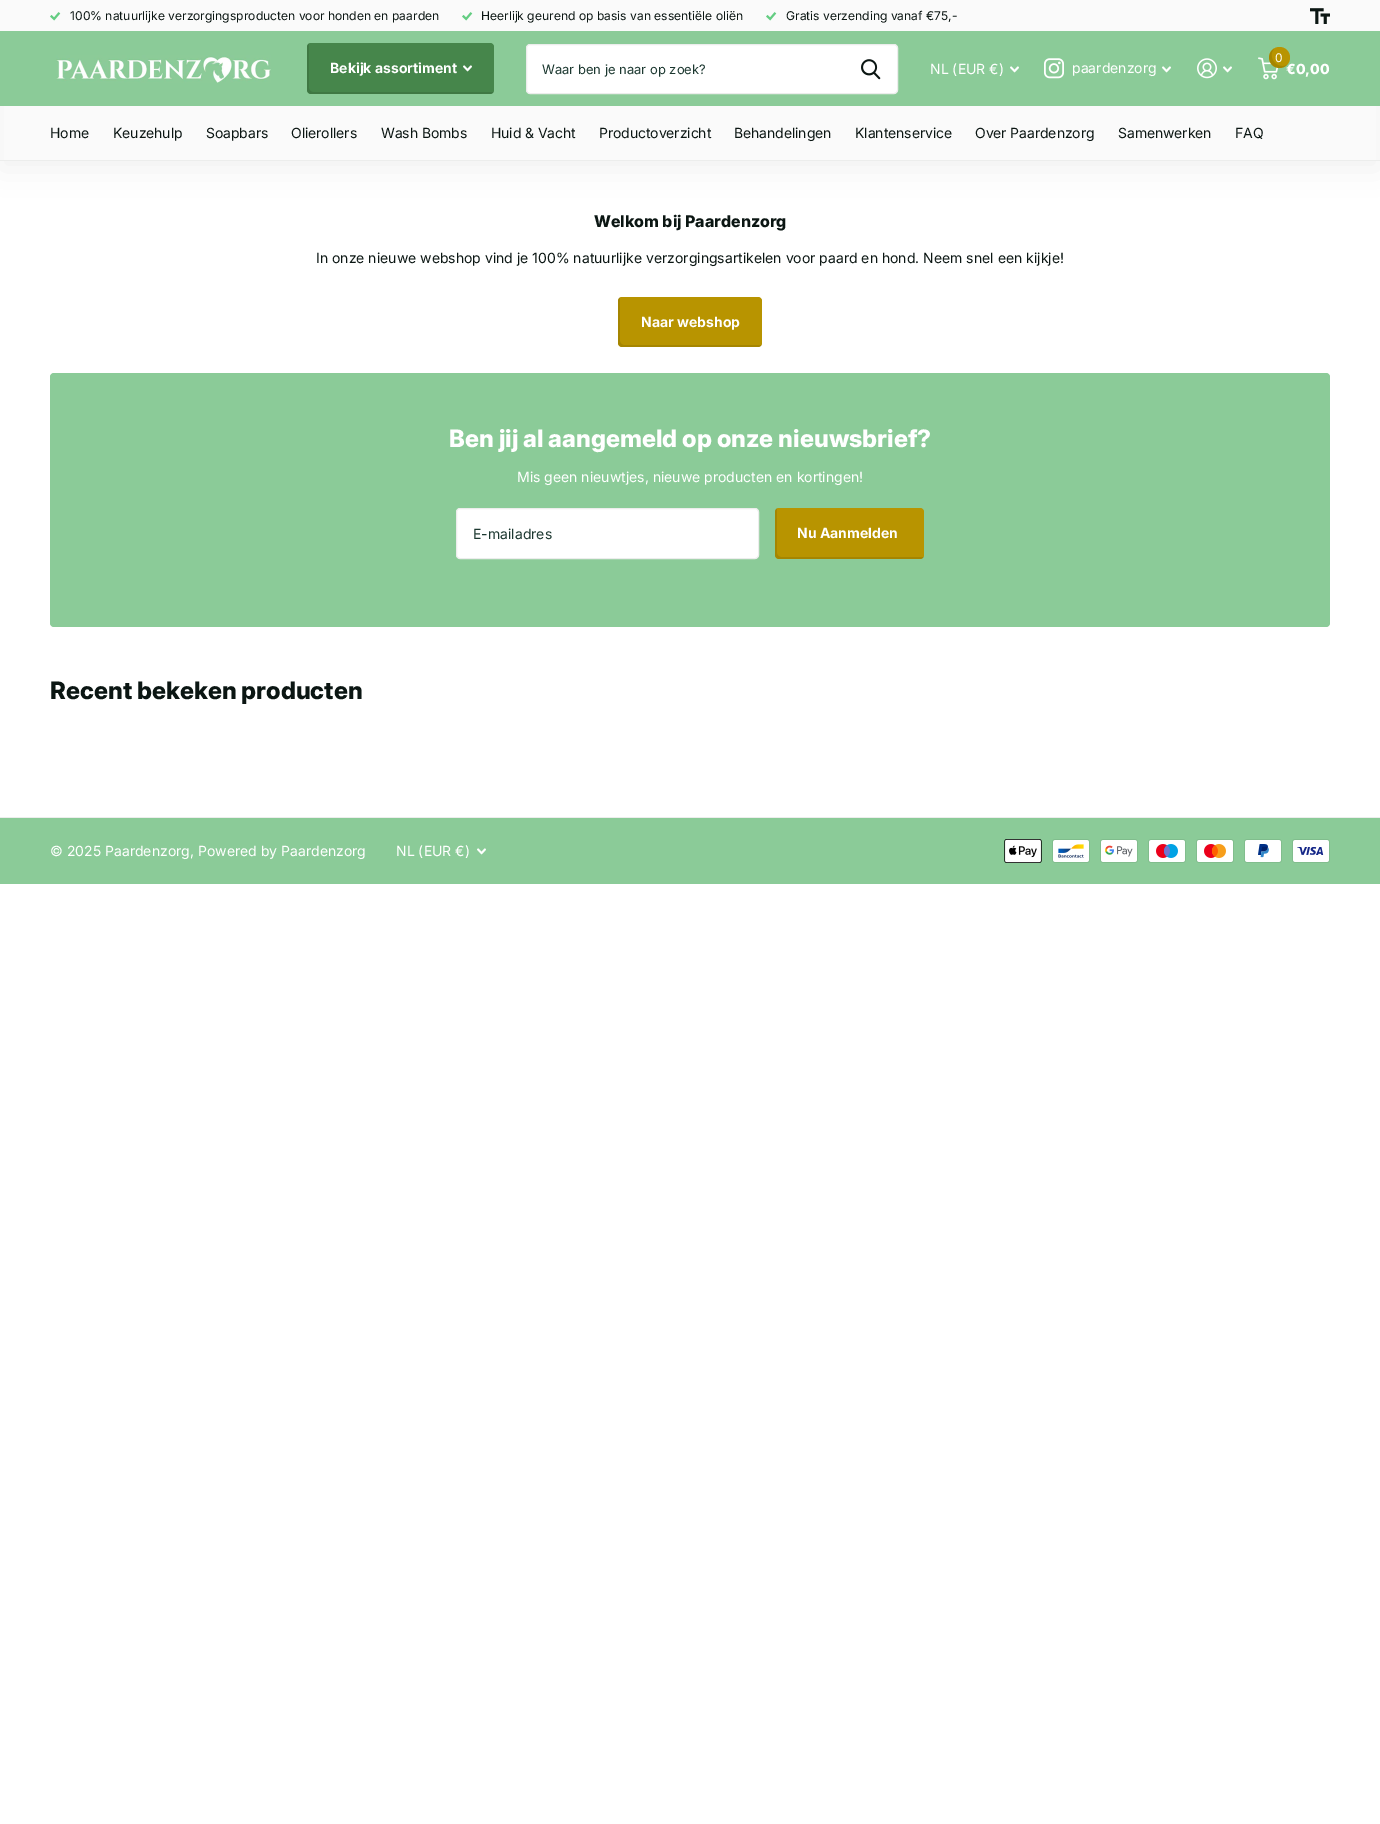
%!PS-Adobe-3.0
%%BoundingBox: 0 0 1380 1824
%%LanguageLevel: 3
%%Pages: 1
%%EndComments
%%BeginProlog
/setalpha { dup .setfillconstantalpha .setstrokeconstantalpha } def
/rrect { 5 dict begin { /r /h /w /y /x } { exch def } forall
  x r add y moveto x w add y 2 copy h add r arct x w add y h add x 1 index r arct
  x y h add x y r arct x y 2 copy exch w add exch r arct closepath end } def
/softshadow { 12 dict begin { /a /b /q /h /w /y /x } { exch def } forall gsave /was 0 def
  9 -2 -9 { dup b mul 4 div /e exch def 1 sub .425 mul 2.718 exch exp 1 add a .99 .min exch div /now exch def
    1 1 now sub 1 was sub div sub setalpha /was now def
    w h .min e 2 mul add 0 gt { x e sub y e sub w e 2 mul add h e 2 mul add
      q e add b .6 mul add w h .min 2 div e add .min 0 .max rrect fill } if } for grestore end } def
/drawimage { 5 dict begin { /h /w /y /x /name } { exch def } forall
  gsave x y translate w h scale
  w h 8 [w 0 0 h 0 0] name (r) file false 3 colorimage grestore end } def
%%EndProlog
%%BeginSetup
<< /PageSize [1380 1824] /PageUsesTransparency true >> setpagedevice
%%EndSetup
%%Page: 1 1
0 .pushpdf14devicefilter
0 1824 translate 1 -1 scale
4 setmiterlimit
1 setgray
0 0 1380 1824 rectfill
0 setgray
0 9 1380 161 0 16 0.05 softshadow
0.545 0.796 0.596 setrgbcolor
0 31 1380 75 rectfill
0.925 0.929 0.925 setrgbcolor
0 160 1380 1 rectfill
0.98 setgray
0 0 1380 31 rectfill
(images/1.raw) 50 12 11 9 drawimage
(images/1.raw) 462 12 11 9 drawimage
(images/1.raw) 766 12 11 9 drawimage
(images/2.raw) 1310 8 20 16 drawimage
(images/3.raw) 56 55 215 28 drawimage
0.275 0.525 0.294 setrgbcolor
307 43 187 51 4 rrect fill
0.1 setalpha
0 setgray
newpath 309 43 moveto 308 44 307 45 307 47 curveto 307 90 lineto 307 92 309 94 311 94 curveto 490 94 lineto 492 94 493 93 494 92 curveto 492 92 lineto 313 92 lineto 311 92 309 90 309 88 curveto 309 45 lineto closepath fill
1 setalpha
(images/4.raw) 463 65 9 7 drawimage
1 setgray
526.5 44.5 371 49 3.5 rrect gsave fill grestore
0.925 0.929 0.925 setrgbcolor
stroke
(images/5.raw) 861 59 20 21 drawimage
(images/6.raw) 1010 66 9 7 drawimage
(images/7.raw) 1044 58 20 21 drawimage
(images/6.raw) 1162 66 9 7 drawimage
(images/8.raw) 1197 58 20 21 drawimage
(images/6.raw) 1223 66 9 7 drawimage
(images/9.raw) 1258 57 21 23 drawimage
0.98 setgray
4 106 1372 54 rectfill
0.722 0.58 0 setrgbcolor
618 297 144 50 4 rrect fill
0.1 setalpha
0 setgray
newpath 620 297 moveto 619 298 618 299 618 301 curveto 618 343 lineto 618 345 620 347 622 347 curveto 758 347 lineto 760 347 761 346 762 345 curveto 760 345 lineto 624 345 lineto 622 345 620 343 620 341 curveto 620 299 lineto closepath fill
1 setalpha
0.545 0.796 0.596 setrgbcolor
50 373 1280 254 4 rrect fill
1 setgray
456.5 508.5 302 50 3.5 rrect gsave fill grestore
0.925 0.929 0.925 setrgbcolor
stroke
0.722 0.58 0 setrgbcolor
775 508 149 51 4 rrect fill
0.1 setalpha
0 setgray
newpath 777 508 moveto 776 509 775 510 775 512 curveto 775 555 lineto 775 557 777 559 779 559 curveto 920 559 lineto 922 559 923 558 924 557 curveto 922 557 lineto 781 557 lineto 779 557 777 555 777 553 curveto 777 510 lineto closepath fill
1 setalpha
0.545 0.796 0.596 setrgbcolor
0 818 1380 66 rectfill
0.925 0.929 0.925 setrgbcolor
0 817 1380 1 rectfill
(images/6.raw) 477 848 9 7 drawimage
(images/10.raw) 1004 839 38 24 drawimage
(images/11.raw) 1052 839 38 24 drawimage
(images/12.raw) 1100 839 38 24 drawimage
(images/13.raw) 1148 839 38 24 drawimage
(images/14.raw) 1196 839 38 24 drawimage
(images/15.raw) 1244 839 38 24 drawimage
(images/16.raw) 1292 839 38 24 drawimage
/Inter-Regular [12.1 0 0 -12.1 0 0] selectfont
0.043 0.086 0.075 setrgbcolor
70 20 moveto (100% natuurlijke verzorgingsproducten voor honden en paarden) show
481 20 moveto (Heerlijk geurend op basis van essentiële oliën) show
786 20 moveto (Gratis verzending vanaf €75,-) show
/Inter-Bold [14 0 0 -14 0 0] selectfont
1 setgray
330 73 moveto (Bekijk assortiment) show
/Inter-Regular [13 0 0 -13 0 0] selectfont
0.11 0.22 0.188 setrgbcolor
542 74 moveto (Waar ben je naar op zoek?) show
/Inter-Regular [14 0 0 -14 0 0] selectfont
1 setgray
930 74 moveto (NL \(EUR €\)) show
1072 73 moveto (paardenzorg) show
/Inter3-ExtraBold [14 0 0 -14 0 0] selectfont
1286 74 moveto (€0,00) show
0.722 0.58 0 setrgbcolor
newpath 1279.5 57.5 10.5 0 360 arc closepath fill
0.1 setalpha
0 setgray
newpath 1287.5 64.5 moveto 1278 70.5 1266.5 58 1274 48.5 curveto 1268.5 52.5 1267.5 60 1272 65 curveto 1276.5 69 1283.5 69 1287.5 64.5 curveto closepath fill
/Inter-Regular [12 0 0 -12 0 0] selectfont
1 setalpha
1 setgray
1275 62 moveto (0) show
/Inter-Regular [14 0 0 -14 0 0] selectfont
0.043 0.086 0.075 setrgbcolor
50 138 moveto -0.1 0 (Home) ashow
113 138 moveto -0.1 0 (Keuzehulp) ashow
206 138 moveto -0.1 0 (Soapbars) ashow
291 138 moveto -0.1 0 (Olierollers) ashow
381 138 moveto -0.1 0 (Wash Bombs) ashow
491 138 moveto -0.1 0 (Huid & Vacht) ashow
599 138 moveto -0.1 0 (Productoverzicht) ashow
734 138 moveto -0.1 0 (Behandelingen) ashow
855 138 moveto -0.1 0 (Klantenservice) ashow
975 138 moveto -0.1 0 (Over Paardenzorg) ashow
1118 138 moveto -0.1 0 (Samenwerken) ashow
1235 138 moveto -0.1 0 (FAQ) ashow
/Inter-ExtraBold [16 0 0 -16 0 0] selectfont
594 227 moveto (Welkom bij Paardenzorg) show
/Inter-Regular [14 0 0 -14 0 0] selectfont
316 263 moveto (In onze nieuwe webshop vind je 100% natuurlijke verzorgingsartikelen voor paard en hond. Neem snel een kijkje!) show
/Inter-Bold [14 0 0 -14 0 0] selectfont
1 setgray
641 327 moveto (Naar webshop) show
/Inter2-ExtraBold [24 0 0 -24 0 0] selectfont
449 447 moveto (Ben jij al aangemeld op onze nieuwsbrief?) show
/Inter-Regular [14 0 0 -14 0 0] selectfont
517 482 moveto (Mis geen nieuwtjes, nieuwe producten en kortingen!) show
0.11 0.22 0.188 setrgbcolor
473 539 moveto (E-mailadres) show
/Inter-Bold [14 0 0 -14 0 0] selectfont
1 setgray
797 538 moveto (Nu Aanmelden) show
/Inter2-ExtraBold [24 0 0 -24 0 0] selectfont
0.043 0.086 0.075 setrgbcolor
50 699 moveto (Recent bekeken producten) show
/Inter-Regular [14 0 0 -14 0 0] selectfont
1 setgray
50 856 moveto (© 2025 Paardenzorg, Powered by Paardenzorg) show
396 856 moveto (NL \(EUR €\)) show
.poppdf14devicefilter showpage
%%EOF
